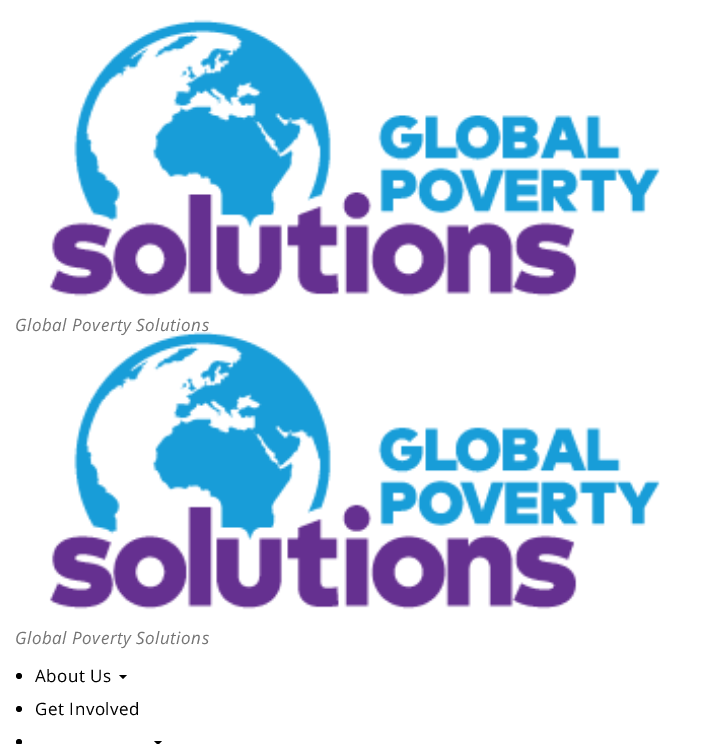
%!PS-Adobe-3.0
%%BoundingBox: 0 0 701 744
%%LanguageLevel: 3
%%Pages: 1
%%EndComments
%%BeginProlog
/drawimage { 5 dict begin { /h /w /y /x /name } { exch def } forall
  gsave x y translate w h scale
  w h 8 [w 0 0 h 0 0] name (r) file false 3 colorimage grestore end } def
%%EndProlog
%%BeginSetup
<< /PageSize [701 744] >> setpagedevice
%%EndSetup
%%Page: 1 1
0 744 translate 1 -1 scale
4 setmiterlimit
1 setgray
0 0 701 744 rectfill
(images/1.raw) 49 19 611 278 drawimage
0 setgray
newpath 19 676 3 0 360 arc closepath fill
newpath 119 675 moveto 127 675 lineto 123 679 lineto closepath fill
newpath 19 709 3 0 360 arc closepath fill
newpath 19 742 3 0 360 arc closepath fill
newpath 154 741 moveto 162 741 lineto 158 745 lineto closepath fill
/OpenSans-Italic [17 0 0 -17 0 0] selectfont
0.455 setgray
15 331 moveto 0.5 0 (Global Poverty Solutions) ashow
(images/2.raw) 49 332 611 278 drawimage
15 644 moveto 0.5 0 (Global Poverty Solutions) ashow
/OpenSans-Regular [17 0 0 -17 0 0] selectfont
0 setgray
35 682 moveto 0.5 0 (About Us) ashow
35 715 moveto 0.5 0 (Get Involved) ashow
showpage
%%EOF
